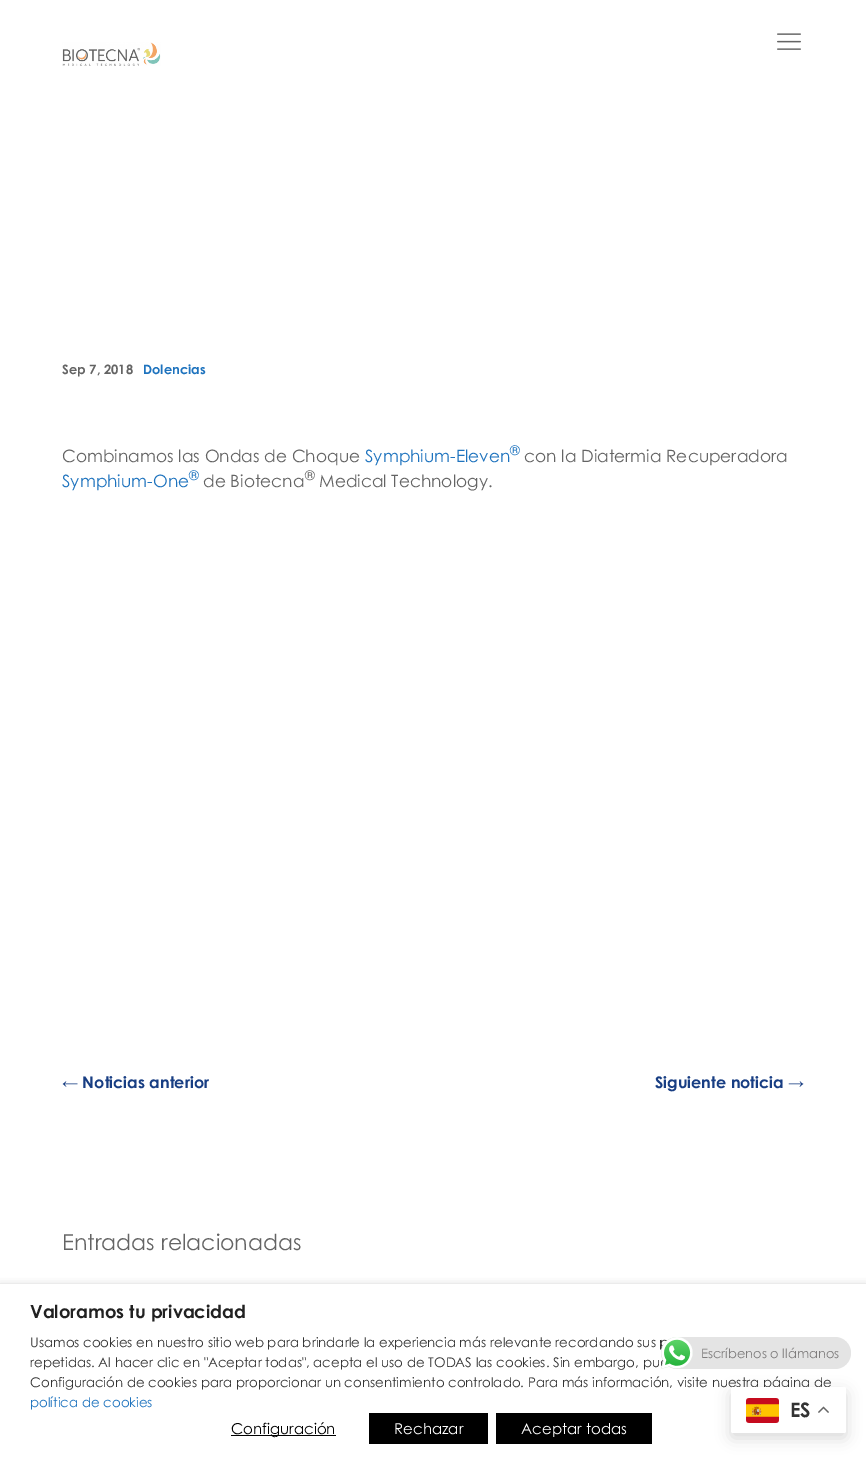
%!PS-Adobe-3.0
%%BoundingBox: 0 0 866 1459
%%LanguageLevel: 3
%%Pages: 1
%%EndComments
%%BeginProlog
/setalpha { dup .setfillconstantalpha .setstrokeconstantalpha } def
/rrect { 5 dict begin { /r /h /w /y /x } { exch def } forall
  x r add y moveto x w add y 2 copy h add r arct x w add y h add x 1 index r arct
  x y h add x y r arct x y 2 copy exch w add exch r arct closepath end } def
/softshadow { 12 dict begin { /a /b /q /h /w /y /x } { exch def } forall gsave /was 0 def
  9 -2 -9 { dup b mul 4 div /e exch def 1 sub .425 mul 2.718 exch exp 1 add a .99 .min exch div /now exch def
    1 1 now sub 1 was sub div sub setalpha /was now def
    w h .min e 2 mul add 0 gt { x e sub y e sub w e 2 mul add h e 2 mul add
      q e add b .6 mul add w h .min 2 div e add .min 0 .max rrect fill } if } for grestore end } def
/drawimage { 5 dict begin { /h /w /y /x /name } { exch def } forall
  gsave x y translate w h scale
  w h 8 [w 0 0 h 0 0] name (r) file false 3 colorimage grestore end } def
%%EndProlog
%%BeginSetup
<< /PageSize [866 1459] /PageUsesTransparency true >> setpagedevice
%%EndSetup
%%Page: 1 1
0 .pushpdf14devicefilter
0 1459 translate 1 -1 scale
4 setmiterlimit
1 setgray
0 0 866 1459 rectfill
(images/1.raw) 62 42 99 24 drawimage
(images/2.raw) 777 33 24 17 drawimage
0 setgray
0 1289 866 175 0 5 0.5 softshadow
1 setgray
0 1284 866 175 rectfill
0 setgray
231 1435 105 1 rectfill
369 1413 119 31 rectfill
496 1413 156 31 rectfill
731 1392 115 46 2 7.5 0.15 softshadow
/CenturyGothic-Bold [13 0 0 -13 0 0] selectfont
0.392 setgray
62 374 moveto (Sep 7, 2018) show
0.118 0.451 0.745 setrgbcolor
143 374 moveto (Dolencias) show
/CenturyGothic-Regular [17 0 0 -17 0 0] selectfont
0.392 setgray
62 462 moveto (Combinamos las Ondas de Choque) show
0.118 0.451 0.745 setrgbcolor
365 462 moveto (Symphium-Eleven) show
/CenturyGothic-Regular [13 0 0 -13 0 0] selectfont
510 455 moveto (®) show
/CenturyGothic-Regular [17 0 0 -17 0 0] selectfont
0.392 setgray
524 462 moveto (con la Diatermia Recuperadora) show
0.118 0.451 0.745 setrgbcolor
62 487 moveto (Symphium-One) show
/CenturyGothic-Regular [13 0 0 -13 0 0] selectfont
189 480 moveto (®) show
/CenturyGothic-Regular [17 0 0 -17 0 0] selectfont
0.392 setgray
203 487 moveto (de Biotecna) show
/CenturyGothic-Regular [13 0 0 -13 0 0] selectfont
305 480 moveto (®) show
/CenturyGothic-Regular [17 0 0 -17 0 0] selectfont
319 487 moveto (Medical Technology.) show
/CenturyGothic-Bold [16 0 0 -16 0 0] selectfont
0.094 0.243 0.514 setrgbcolor
62 1088 moveto (← Noticias anterior) show
655 1088 moveto (Siguiente noticia →) show
/CenturyGothic-Regular [22 0 0 -22 0 0] selectfont
0.392 setgray
62 1250 moveto (Entradas relacionadas) show
/CenturyGothic-Bold [18 0 0 -18 0 0] selectfont
0.129 setgray
30 1318 moveto (Valoramos tu privacidad) show
/CenturyGothic-Regular [13.33 0 0 -13.33 0 0] selectfont
0.2 setgray
30 1347 moveto (Usamos cookies en nuestro sitio web para brindarle la experiencia más relevante recordando sus p) show
30 1367 moveto (repetidas. Al hacer clic en "Aceptar todas", acepta el uso de TODAS las cookies. Sin embargo, pu) show
30 1387 moveto (Configuración de cookies para proporcionar un consentimiento controlado. Para más información, visite nuestra página de) show
0.118 0.451 0.745 setrgbcolor
30 1407 moveto (política de cookies) show
/CenturyGothic-Regular [15 0 0 -15 0 0] selectfont
0 setgray
231 1434 moveto (Configuración) show
1 setgray
394 1434 moveto (Rechazar) show
521 1434 moveto (Aceptar todas) show
0.894 setgray
661 1337 190 32 16 rrect fill
(images/3.raw) 661 1337 32 32 drawimage
/CenturyGothic-Regular [13 0 0 -13 0 0] selectfont
0.498 0.49 0.49 setrgbcolor
701 1358 moveto (Escríbenos o llámanos) show
1 setgray
731 1387 115 46 2 rrect fill
(images/4.raw) 746 1398 33 25 drawimage
/CenturyGothic-Bold [20 0 0 -20 0 0] selectfont
0.2 setgray
790 1417 moveto (ES) show
(images/5.raw) 818 1406 11 7 drawimage
.poppdf14devicefilter showpage
%%EOF
